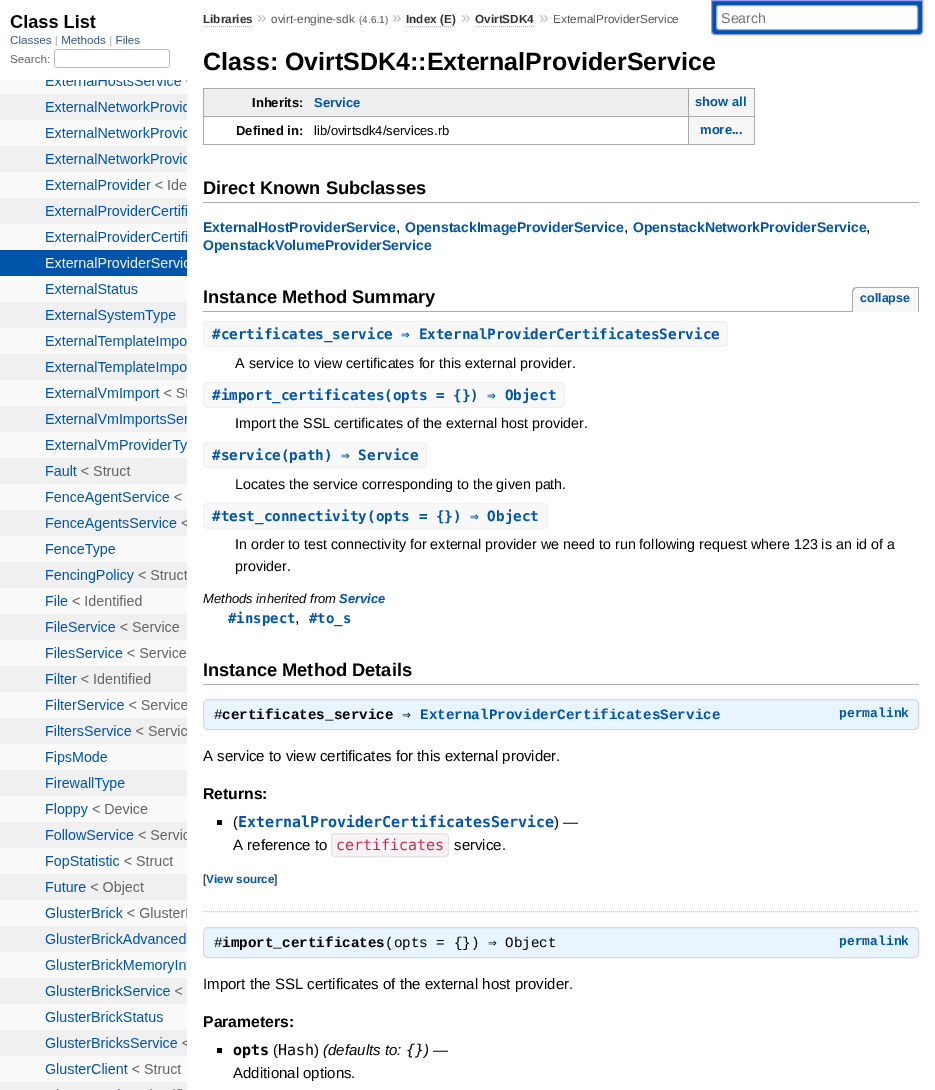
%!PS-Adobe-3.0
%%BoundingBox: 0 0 935 1090
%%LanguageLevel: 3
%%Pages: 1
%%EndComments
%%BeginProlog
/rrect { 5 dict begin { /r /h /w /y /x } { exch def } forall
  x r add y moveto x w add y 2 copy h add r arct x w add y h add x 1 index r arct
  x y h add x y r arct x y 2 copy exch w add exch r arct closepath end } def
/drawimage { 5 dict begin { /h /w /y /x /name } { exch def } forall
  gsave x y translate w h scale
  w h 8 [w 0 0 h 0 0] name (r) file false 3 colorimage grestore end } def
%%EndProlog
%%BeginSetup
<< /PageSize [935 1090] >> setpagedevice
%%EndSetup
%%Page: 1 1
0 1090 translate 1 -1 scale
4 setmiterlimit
1 setgray
0 0 935 1090 rectfill
(images/1.raw) 0 15 187 1075 drawimage
0.733 0.733 0.867 setrgbcolor
[1 1] 0 setdash
newpath 203 26.5 moveto 253 26.5 lineto stroke
newpath 406 26.5 moveto 456 26.5 lineto stroke
newpath 475 26.5 moveto 534 26.5 lineto stroke
0 0.333 0.667 setrgbcolor
newpath 711.5 0.5 moveto 922.5 0.5 lineto 922.5 31 lineto 922.5 33 921 34.5 919 34.5 curveto 715 34.5 lineto 713 34.5 711.5 33 711.5 31 curveto closepath gsave fill grestore
0.6 0.6 1 setrgbcolor
[] 0 setdash
stroke
1 setgray
716.5 5.5 201 24 2.5 rrect gsave fill grestore
0.6 0.6 1 setrgbcolor
stroke
0.933 setgray
204 89 484 27 rectfill
0.667 setgray
203 88 552 1 rectfill
203 88 1 28 rectfill
203 116 552 1 rectfill
754 88 1 57 rectfill
0.965 setgray
689 89 65 27 rectfill
0.667 setgray
688 89 1 27 rectfill
203 144 111 1 rectfill
203 116 1 29 rectfill
314 144 441 1 rectfill
0.965 setgray
689 117 65 27 rectfill
0.667 setgray
688 117 1 27 rectfill
203 202 716 1 rectfill
203 311 649 1 rectfill
0.973 setgray
newpath 857 287 moveto 919 287 lineto 919 312 lineto 852 312 lineto 852 292 lineto 852 289 854 287 857 287 curveto closepath fill
0.667 setgray
newpath 857 287 moveto 919 287 lineto 919 312 lineto 852 312 lineto 852 292 lineto 852 289 854 287 857 287 curveto closepath 857 288 moveto 918 288 lineto 918 312 lineto 853 312 lineto 853 292 lineto 853 290 855 288 857 288 curveto closepath eofill
0.973 setgray
newpath 208 321 moveto 220 321 lineto 220 347 lineto 208 347 lineto 205 347 203 345 203 342 curveto 203 326 lineto 203 323 205 321 208 321 curveto closepath fill
0.941 setgray
newpath 208 321 moveto 220 321 lineto 220 347 lineto 208 347 lineto 205 347 203 345 203 342 curveto 203 326 lineto 203 323 205 321 208 321 curveto closepath 208 322 moveto 220 322 lineto 220 346 lineto 208 346 lineto 206 346 204 344 204 342 curveto 204 326 lineto 204 324 206 322 208 322 curveto closepath eofill
0.973 setgray
220 322 172 24 rectfill
0.941 setgray
220 321 172 1 rectfill
220 346 172 1 rectfill
0.973 setgray
newpath 392 321 moveto 723 321 lineto 726 321 728 323 728 326 curveto 728 342 lineto 728 345 726 347 723 347 curveto 392 347 lineto closepath fill
0.941 setgray
newpath 392 321 moveto 723 321 lineto 726 321 728 323 728 326 curveto 728 342 lineto 728 345 726 347 723 347 curveto 392 347 lineto closepath 392 322 moveto 723 322 lineto 725 322 727 324 727 326 curveto 727 342 lineto 727 344 725 346 723 346 curveto 392 346 lineto closepath eofill
0.973 setgray
newpath 208 382 moveto 220 382 lineto 220 408 lineto 208 408 lineto 205 408 203 406 203 403 curveto 203 387 lineto 203 384 205 382 208 382 curveto closepath fill
0.941 setgray
newpath 208 382 moveto 220 382 lineto 220 408 lineto 208 408 lineto 205 408 203 406 203 403 curveto 203 387 lineto 203 384 205 382 208 382 curveto closepath 208 383 moveto 220 383 lineto 220 407 lineto 208 407 lineto 206 407 204 405 204 403 curveto 204 387 lineto 204 385 206 383 208 383 curveto closepath eofill
0.973 setgray
220 383 164 24 rectfill
0.941 setgray
220 382 164 1 rectfill
220 407 164 1 rectfill
0.973 setgray
newpath 384 382 moveto 560 382 lineto 563 382 565 384 565 387 curveto 565 403 lineto 565 406 563 408 560 408 curveto 384 408 lineto closepath fill
0.941 setgray
newpath 384 382 moveto 560 382 lineto 563 382 565 384 565 387 curveto 565 403 lineto 565 406 563 408 560 408 curveto 384 408 lineto closepath 384 383 moveto 560 383 lineto 562 383 564 385 564 387 curveto 564 403 lineto 564 405 562 407 560 407 curveto 384 407 lineto closepath eofill
0.973 setgray
newpath 208 442 moveto 220 442 lineto 220 468 lineto 208 468 lineto 205 468 203 466 203 463 curveto 203 447 lineto 203 444 205 442 208 442 curveto closepath fill
0.941 setgray
newpath 208 442 moveto 220 442 lineto 220 468 lineto 208 468 lineto 205 468 203 466 203 463 curveto 203 447 lineto 203 444 205 442 208 442 curveto closepath 208 443 moveto 220 443 lineto 220 467 lineto 208 467 lineto 206 467 204 465 204 463 curveto 204 447 lineto 204 445 206 443 208 443 curveto closepath eofill
0.973 setgray
220 443 60 24 rectfill
0.941 setgray
220 442 60 1 rectfill
220 467 60 1 rectfill
0.973 setgray
newpath 280 442 moveto 422 442 lineto 425 442 427 444 427 447 curveto 427 463 lineto 427 466 425 468 422 468 curveto 280 468 lineto closepath fill
0.941 setgray
newpath 280 442 moveto 422 442 lineto 425 442 427 444 427 447 curveto 427 463 lineto 427 466 425 468 422 468 curveto 280 468 lineto closepath 280 443 moveto 422 443 lineto 424 443 426 445 426 447 curveto 426 463 lineto 426 465 424 467 422 467 curveto 280 467 lineto closepath eofill
0.973 setgray
newpath 208 503 moveto 220 503 lineto 220 529 lineto 208 529 lineto 205 529 203 527 203 524 curveto 203 508 lineto 203 505 205 503 208 503 curveto closepath fill
0.941 setgray
newpath 208 503 moveto 220 503 lineto 220 529 lineto 208 529 lineto 205 529 203 527 203 524 curveto 203 508 lineto 203 505 205 503 208 503 curveto closepath 208 504 moveto 220 504 lineto 220 528 lineto 208 528 lineto 206 528 204 526 204 524 curveto 204 508 lineto 204 506 206 504 208 504 curveto closepath eofill
0.973 setgray
220 504 147 24 rectfill
0.941 setgray
220 503 147 1 rectfill
220 528 147 1 rectfill
0.973 setgray
newpath 367 503 moveto 543 503 lineto 546 503 548 505 548 508 curveto 548 524 lineto 548 527 546 529 543 529 curveto 367 529 lineto closepath fill
0.941 setgray
newpath 367 503 moveto 543 503 lineto 546 503 548 505 548 508 curveto 548 524 lineto 548 527 546 529 543 529 curveto 367 529 lineto closepath 367 504 moveto 543 504 lineto 545 504 547 506 547 508 curveto 547 524 lineto 547 526 545 528 543 528 curveto 367 528 lineto closepath eofill
0.667 setgray
203 684 716 1 rectfill
0.91 0.957 1 setrgbcolor
203.5 699.5 715 30 4.5 rrect gsave fill grestore
0.847 0.847 0.898 setrgbcolor
stroke
0 setgray
217 820 5 5 rectfill
0.976 0.949 0.957 setrgbcolor
331.5 833.5 117 23 3.5 rrect gsave fill grestore
0.882 0.882 0.91 setrgbcolor
stroke
0.8 setgray
[1 1] 0 setdash
newpath 203 911.5 moveto 919 911.5 lineto stroke
0.91 0.957 1 setrgbcolor
203.5 927.5 715 30 4.5 rrect gsave fill grestore
0.847 0.847 0.898 setrgbcolor
[] 0 setdash
stroke
0 setgray
217 1048 5 5 rectfill
/LiberationSans-Bold [11.75 0 0 -11.75 0 0] selectfont
0.2 setgray
203 23 moveto (Libraries) show
/LiberationSans-Regular [17 0 0 -17 0 0] selectfont
0.733 setgray
257 23 moveto (») show
/LiberationSans-Regular [11.75 0 0 -11.75 0 0] selectfont
0.333 setgray
271 23 moveto (ovirt-engine-sdk) show
/LiberationSans-Regular [10 0 0 -10 0 0] selectfont
359 23 moveto (\(4.6.1\)) show
/LiberationSans-Regular [17 0 0 -17 0 0] selectfont
0.733 setgray
392 23 moveto (») show
/LiberationSans-Bold [11.75 0 0 -11.75 0 0] selectfont
0.2 setgray
406 23 moveto (Index \(E\)) show
/LiberationSans-Regular [17 0 0 -17 0 0] selectfont
0.733 setgray
461 23 moveto (») show
/LiberationSans-Bold [11.75 0 0 -11.75 0 0] selectfont
0.2 setgray
475 23 moveto (OvirtSDK4) show
/LiberationSans-Regular [17 0 0 -17 0 0] selectfont
0.733 setgray
539 23 moveto (») show
/LiberationSans-Regular [11.75 0 0 -11.75 0 0] selectfont
0.333 setgray
553 23 moveto (ExternalProviderService) show
/LiberationSans-Regular [14.3 0 0 -14.3 0 0] selectfont
0.459 setgray
721 23 moveto (Search) show
/LiberationSans-Bold [25 0 0 -25 0 0] selectfont
0 setgray
203 70 moveto (Class: OvirtSDK4::ExternalProviderService) show
/LiberationSans-Bold [13 0 0 -13 0 0] selectfont
252 107 moveto (Inherits:) show
0 0.333 0.667 setrgbcolor
314 107 moveto (Service) show
695 106 moveto (show all) show
0 setgray
236 135 moveto (Defined in:) show
/LiberationSans-Regular [13 0 0 -13 0 0] selectfont
314 135 moveto (lib/ovirtsdk4/services.rb) show
/LiberationSans-Bold [13 0 0 -13 0 0] selectfont
0 0.333 0.667 setrgbcolor
700 134 moveto (more...) show
/LiberationSans-Bold [18.25 0 0 -18.25 0 0] selectfont
0 setgray
203 194 moveto (Direct Known Subclasses) show
/LiberationSans-Bold [14 0 0 -14 0 0] selectfont
0 0.333 0.667 setrgbcolor
203 232 moveto (ExternalHostProviderService) show
/LiberationSans-Regular [16 0 0 -16 0 0] selectfont
0 setgray
396 232 moveto (,) show
/LiberationSans-Bold [14 0 0 -14 0 0] selectfont
0 0.333 0.667 setrgbcolor
405 232 moveto (OpenstackImageProviderService) show
/LiberationSans-Regular [16 0 0 -16 0 0] selectfont
0 setgray
624 232 moveto (,) show
/LiberationSans-Bold [14 0 0 -14 0 0] selectfont
0 0.333 0.667 setrgbcolor
633 232 moveto (OpenstackNetworkProviderService) show
/LiberationSans-Regular [16 0 0 -16 0 0] selectfont
0 setgray
866 232 moveto (,) show
/LiberationSans-Bold [14 0 0 -14 0 0] selectfont
0 0.333 0.667 setrgbcolor
203 250 moveto (OpenstackVolumeProviderService) show
/LiberationSans-Bold [18.25 0 0 -18.25 0 0] selectfont
0 setgray
203 303 moveto (Instance Method Summary) show
/LiberationSans-Bold [12.5 0 0 -12.5 0 0] selectfont
0 0.333 0.667 setrgbcolor
860 302 moveto (collapse) show
/DejaVuSansMono-Bold [14.3 0 0 -14.3 0 0] selectfont
212 339 moveto (#certificates_service ⇒ ExternalProviderCertificatesService) show
/LiberationSans-Regular [14.3 0 0 -14.3 0 0] selectfont
0 setgray
235 368 moveto (A service to view certificates for this external provider.) show
/DejaVuSansMono-Bold [14.3 0 0 -14.3 0 0] selectfont
0 0.333 0.667 setrgbcolor
212 400 moveto (#import_certificates\(opts = {}\) ⇒ Object) show
/LiberationSans-Regular [14.3 0 0 -14.3 0 0] selectfont
0 setgray
235 428 moveto (Import the SSL certificates of the external host provider.) show
/DejaVuSansMono-Bold [14.3 0 0 -14.3 0 0] selectfont
0 0.333 0.667 setrgbcolor
212 460 moveto (#service\(path\) ⇒ Service) show
/LiberationSans-Regular [14.3 0 0 -14.3 0 0] selectfont
0 setgray
235 489 moveto (Locates the service corresponding to the given path.) show
/DejaVuSansMono-Bold [14.3 0 0 -14.3 0 0] selectfont
0 0.333 0.667 setrgbcolor
212 521 moveto (#test_connectivity\(opts = {}\) ⇒ Object) show
/LiberationSans-Regular [14.3 0 0 -14.3 0 0] selectfont
0 setgray
235 549 moveto (In order to test connectivity for external provider we need to run following request where 123 is an id of a) show
235 571 moveto (provider.) show
/LiberationSans-Italic [13 0 0 -13 0 0] selectfont
203 603 moveto (Methods inherited from) show
/LiberationSans-BoldItalic [13 0 0 -13 0 0] selectfont
0 0.333 0.667 setrgbcolor
339 603 moveto (Service) show
/DejaVuSansMono-Bold [14 0 0 -14 0 0] selectfont
228 623 moveto (#inspect) show
/LiberationSans-Regular [16 0 0 -16 0 0] selectfont
0 setgray
295 623 moveto (,) show
/DejaVuSansMono-Bold [14 0 0 -14 0 0] selectfont
0 0.333 0.667 setrgbcolor
309 623 moveto (#to_s) show
/LiberationSans-Bold [18.25 0 0 -18.25 0 0] selectfont
0 setgray
203 676 moveto (Instance Method Details) show
/LiberationMono-Regular [14.3 0 0 -14.3 0 0] selectfont
214 719 moveto (#) show
/LiberationMono-Bold [14.3 0 0 -14.3 0 0] selectfont
222 719 moveto (certificates_service) show
/DejaVuSansMono-Regular [14.3 0 0 -14.3 0 0] selectfont
402 719 moveto (⇒) show
/LiberationMono-Bold [14.3 0 0 -14.3 0 0] selectfont
0 0.333 0.667 setrgbcolor
420 719 moveto (ExternalProviderCertificatesService) show
/LiberationMono-Bold [13 0 0 -13 0 0] selectfont
839 717 moveto (permalink) show
/LiberationSans-Regular [15 0 0 -15 0 0] selectfont
0 setgray
203 761 moveto (A service to view certificates for this external provider.) show
/LiberationSans-Bold [15.75 0 0 -15.75 0 0] selectfont
203 799 moveto (Returns:) show
/LiberationSans-Regular [15 0 0 -15 0 0] selectfont
233 827 moveto (\() show
/DejaVuSansMono-Bold [15 0 0 -15 0 0] selectfont
0 0.333 0.667 setrgbcolor
238 827 moveto (ExternalProviderCertificatesService) show
/LiberationSans-Regular [15 0 0 -15 0 0] selectfont
0 setgray
554 827 moveto (\) —) show
233 850 moveto (A reference to) show
/DejaVuSansMono-Regular [15 0 0 -15 0 0] selectfont
0.78 0.145 0.306 setrgbcolor
336 850 moveto (certificates) show
/LiberationSans-Regular [15 0 0 -15 0 0] selectfont
0 setgray
454 850 moveto (service.) show
/LiberationSans-Regular [11.75 0 0 -11.75 0 0] selectfont
203 883 moveto ([) show
/LiberationSans-Bold [11.75 0 0 -11.75 0 0] selectfont
0 0.333 0.667 setrgbcolor
206 883 moveto (View source) show
/LiberationSans-Regular [11.75 0 0 -11.75 0 0] selectfont
0 setgray
274 883 moveto (]) show
/LiberationMono-Regular [14.3 0 0 -14.3 0 0] selectfont
214 947 moveto (#) show
/LiberationMono-Bold [14.3 0 0 -14.3 0 0] selectfont
222 947 moveto (import_certificates) show
/LiberationMono-Regular [14.3 0 0 -14.3 0 0] selectfont
385 947 moveto (\(opts = {}\)) show
/DejaVuSansMono-Regular [14.3 0 0 -14.3 0 0] selectfont
488 947 moveto (⇒) show
/LiberationMono-Regular [14.3 0 0 -14.3 0 0] selectfont
505 947 moveto (Object) show
/LiberationMono-Bold [13 0 0 -13 0 0] selectfont
0 0.333 0.667 setrgbcolor
839 945 moveto (permalink) show
/LiberationSans-Regular [15 0 0 -15 0 0] selectfont
0 setgray
203 989 moveto (Import the SSL certificates of the external host provider.) show
/LiberationSans-Bold [15.75 0 0 -15.75 0 0] selectfont
203 1027 moveto (Parameters:) show
/DejaVuSansMono-Bold [15 0 0 -15 0 0] selectfont
233 1055 moveto (opts) show
/LiberationSans-Regular [15 0 0 -15 0 0] selectfont
273 1055 moveto (\() show
/DejaVuSansMono-Regular [15 0 0 -15 0 0] selectfont
278 1055 moveto (Hash) show
/LiberationSans-Regular [15 0 0 -15 0 0] selectfont
314 1055 moveto (\)) show
/LiberationSans-Italic [15 0 0 -15 0 0] selectfont
323 1055 moveto (\(defaults to:) show
/DejaVuSansMono-Italic [15 0 0 -15 0 0] selectfont
406 1055 moveto ({}) show
/LiberationSans-Italic [15 0 0 -15 0 0] selectfont
424 1055 moveto (\)) show
/LiberationSans-Regular [15 0 0 -15 0 0] selectfont
433 1055 moveto (—) show
233 1078 moveto (Additional options.) show
showpage
%%EOF
